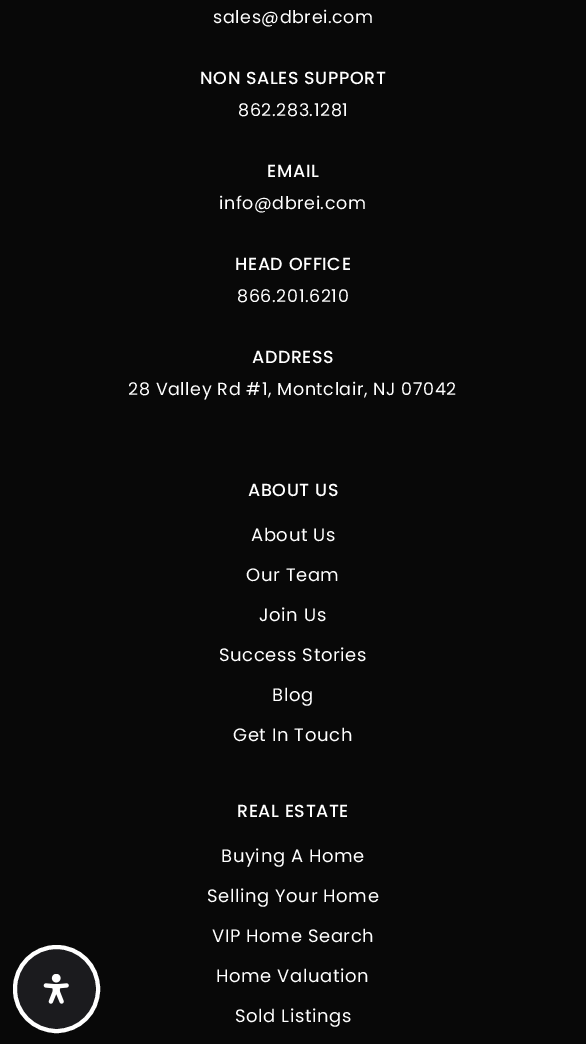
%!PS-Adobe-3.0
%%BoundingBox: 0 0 586 1044
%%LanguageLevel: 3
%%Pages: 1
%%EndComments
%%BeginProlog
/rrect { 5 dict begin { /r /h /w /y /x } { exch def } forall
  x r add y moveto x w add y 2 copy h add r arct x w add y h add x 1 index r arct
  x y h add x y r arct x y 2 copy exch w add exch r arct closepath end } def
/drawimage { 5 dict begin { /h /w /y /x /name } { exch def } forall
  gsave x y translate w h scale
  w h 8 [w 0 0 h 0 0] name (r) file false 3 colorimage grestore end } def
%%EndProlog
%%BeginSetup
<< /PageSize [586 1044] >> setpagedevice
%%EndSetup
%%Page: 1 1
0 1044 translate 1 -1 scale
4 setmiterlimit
0.031 setgray
0 0 586 1044 rectfill
0.106 0.106 0.118 setrgbcolor
15 947 83 84 41.5 rrect gsave fill grestore
1 setgray
4 setlinewidth
stroke
(images/1.raw) 43 974 26 30 drawimage
/Poppins-Regular [17.5 0 0 -17.5 0 0] selectfont
213 23 moveto 0.6 0 (sales@dbrei.com) ashow
/Poppins-Medium [17.5 0 0 -17.5 0 0] selectfont
200 84 moveto 0.6 0 (NON SALES SUPPORT) ashow
/Poppins-Regular [17.5 0 0 -17.5 0 0] selectfont
238 116 moveto 0.6 0 (862.283.1281) ashow
/Poppins-Medium [17.5 0 0 -17.5 0 0] selectfont
267 177 moveto 0.6 0 (EMAIL) ashow
/Poppins-Regular [17.5 0 0 -17.5 0 0] selectfont
219 209 moveto 0.6 0 (info@dbrei.com) ashow
/Poppins-Medium [17.5 0 0 -17.5 0 0] selectfont
235 270 moveto 0.6 0 (HEAD OFFICE) ashow
/Poppins-Regular [17.5 0 0 -17.5 0 0] selectfont
237 302 moveto 0.6 0 (866.201.6210) ashow
/Poppins-Medium [17.5 0 0 -17.5 0 0] selectfont
252 363 moveto 0.6 0 (ADDRESS) ashow
/Poppins-Regular [17.5 0 0 -17.5 0 0] selectfont
128 395 moveto 0.6 0 (28 Valley Rd #1, Montclair, NJ 07042) ashow
/Poppins-Medium [17.5 0 0 -17.5 0 0] selectfont
248 496 moveto 0.6 0 (ABOUT US) ashow
/Poppins-Regular [18 0 0 -18 0 0] selectfont
251 541 moveto 0.6 0 (About Us) ashow
246 581 moveto 0.6 0 (Our Team) ashow
259 621 moveto 0.6 0 (Join Us) ashow
219 661 moveto 0.6 0 (Success Stories) ashow
272 701 moveto 0.6 0 (Blog) ashow
233 741 moveto 0.6 0 (Get In Touch) ashow
/Poppins-Medium [17.5 0 0 -17.5 0 0] selectfont
237 817 moveto 0.6 0 (REAL ESTATE) ashow
/Poppins-Regular [18 0 0 -18 0 0] selectfont
221 862 moveto 0.6 0 (Buying A Home) ashow
207 902 moveto 0.6 0 (Selling Your Home) ashow
212 942 moveto 0.6 0 (VIP Home Search) ashow
216 982 moveto 0.6 0 (Home Valuation) ashow
235 1022 moveto 0.6 0 (Sold Listings) ashow
showpage
%%EOF
